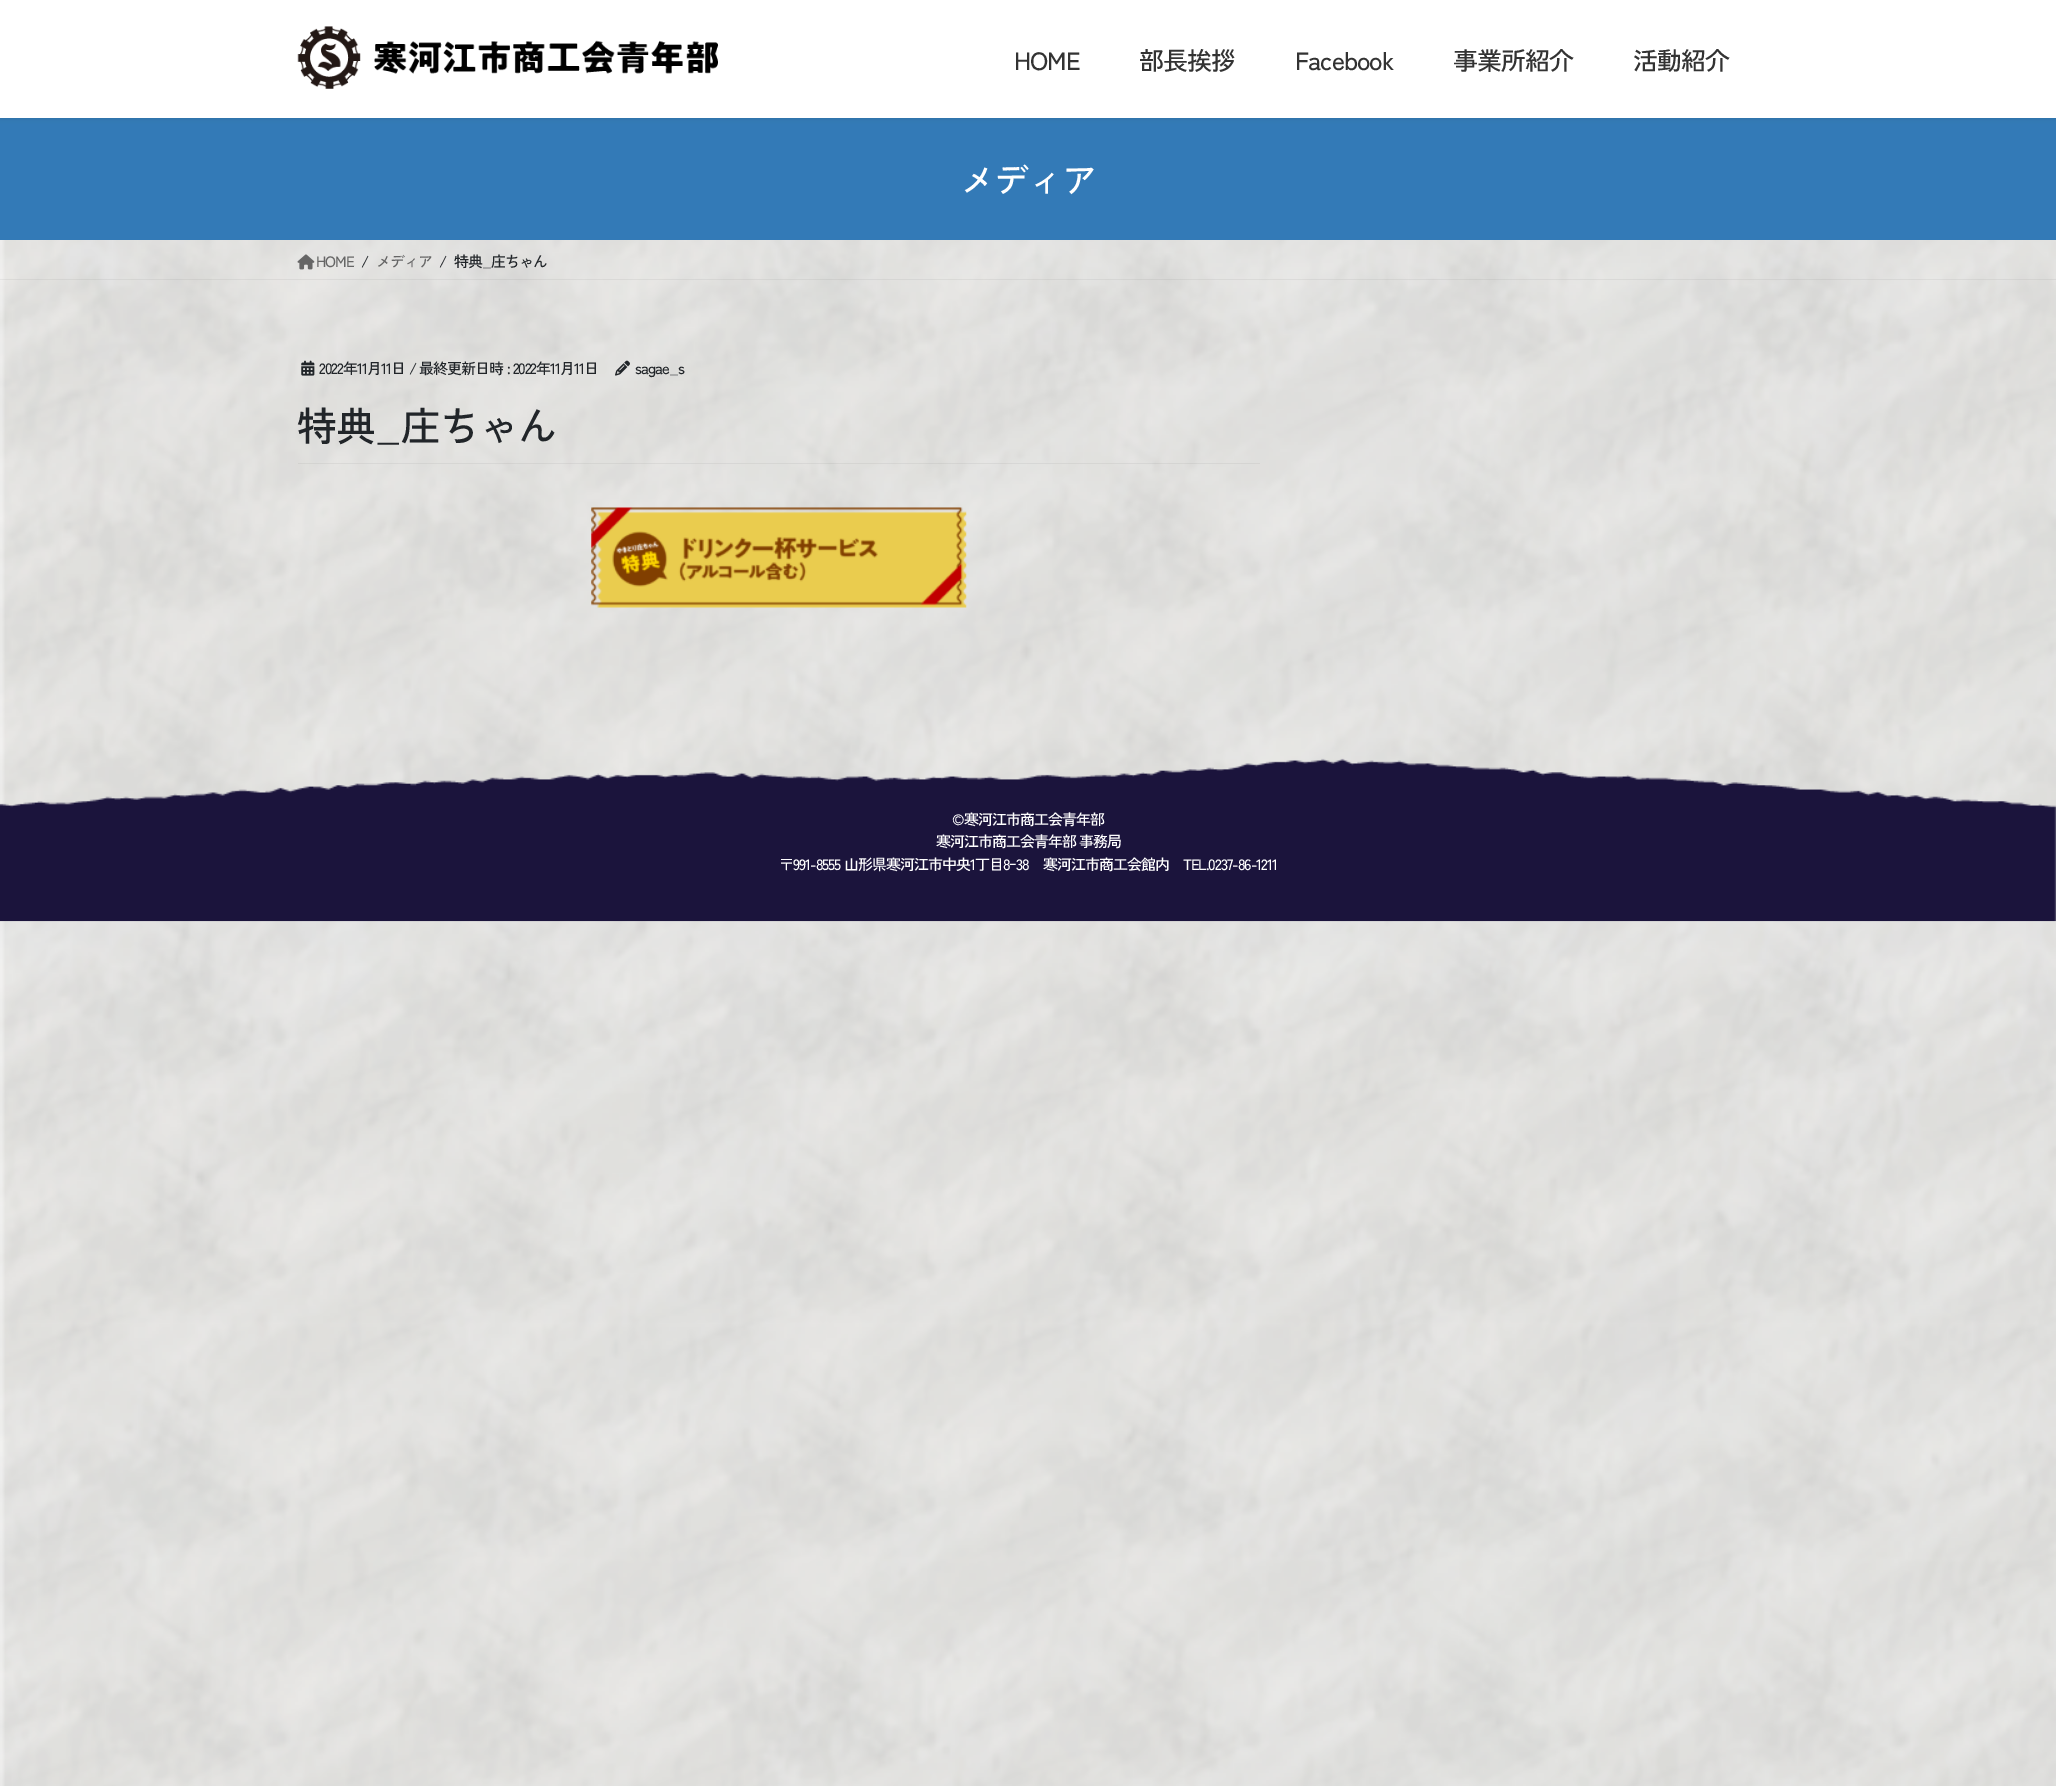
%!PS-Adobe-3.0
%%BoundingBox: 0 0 2056 1786
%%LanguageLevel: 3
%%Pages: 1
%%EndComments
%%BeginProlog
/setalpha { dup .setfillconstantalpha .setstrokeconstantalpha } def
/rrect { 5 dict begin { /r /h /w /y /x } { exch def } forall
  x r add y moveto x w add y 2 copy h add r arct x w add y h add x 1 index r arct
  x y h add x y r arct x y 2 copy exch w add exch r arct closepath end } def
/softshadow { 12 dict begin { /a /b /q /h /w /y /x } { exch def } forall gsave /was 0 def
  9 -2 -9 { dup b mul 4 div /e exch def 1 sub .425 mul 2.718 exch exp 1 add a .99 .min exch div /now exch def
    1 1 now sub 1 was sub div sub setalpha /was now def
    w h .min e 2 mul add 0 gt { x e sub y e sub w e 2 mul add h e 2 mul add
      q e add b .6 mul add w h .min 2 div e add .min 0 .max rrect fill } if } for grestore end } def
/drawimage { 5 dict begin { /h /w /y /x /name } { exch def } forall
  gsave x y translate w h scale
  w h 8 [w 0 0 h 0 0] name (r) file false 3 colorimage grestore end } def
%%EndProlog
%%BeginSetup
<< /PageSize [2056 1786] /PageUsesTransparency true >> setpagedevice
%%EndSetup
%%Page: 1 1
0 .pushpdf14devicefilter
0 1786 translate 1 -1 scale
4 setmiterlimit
1 setgray
0 0 2056 1786 rectfill
(images/1.raw) 0 240 2056 1546 drawimage
0.2 0.478 0.718 setrgbcolor
0 118 2056 122 rectfill
0 setgray
0 1 2056 118 0 2 0.1 softshadow
1 setgray
0 0 2056 118 rectfill
(images/2.raw) 297 26 422 63 drawimage
0.05 setalpha
0 setgray
0 279 2056 1 rectfill
1 setalpha
(images/3.raw) 297 254 18 16 drawimage
0.05 setalpha
298 463 962 1 rectfill
1 setalpha
(images/4.raw) 301 360 14 16 drawimage
(images/5.raw) 615 360 15 16 drawimage
(images/6.raw) 591 507 376 101 drawimage
(images/7.raw) 0 758 2056 164 drawimage
/ZenKakuGothicNew-Medium [25 0 0 -25 0 0] selectfont
0.2 setgray
1014 70 moveto -1 0 (HOME) ashow
1139 70 moveto -1 0 (部長挨拶) ashow
1295 70 moveto -1 0 (Facebook) ashow
1453 70 moveto -1 0 (事業所紹介) ashow
1633 70 moveto -1 0 (活動紹介) ashow
/ZenKakuGothicNew-Medium [35 0 0 -35 0 0] selectfont
1 setgray
960 193 moveto -1 0 (メディア) ashow
/ZenKakuGothicNew-Medium [15 0 0 -15 0 0] selectfont
0.4 setgray
316 267 moveto -1 0 (HOME) ashow
0.129 0.145 0.161 setrgbcolor
361 267 moveto -1 0 (/) ashow
0.4 setgray
376 267 moveto -1 0 (メディア) ashow
0.129 0.145 0.161 setrgbcolor
439 267 moveto -1 0 (/) ashow
454 267 moveto -1 0 (特典_庄ちゃん) ashow
319 374 moveto -1 0 (2022年11月11日) ashow
409 374 moveto -1 0 (/ 最終更新日時 : 2022年11月11日) ashow
635 374 moveto -1 0 (sagae_s) ashow
/ZenKakuGothicNew-Medium [40 0 0 -40 0 0] selectfont
297 441 moveto -1 0 (特典_庄ちゃん) ashow
/ZenKakuGothicNew-Medium [15 0 0 -15 0 0] selectfont
1 setgray
952 825 moveto -1 0 (©寒河江市商工会青年部) ashow
936 847 moveto -1 0 (寒河江市商工会青年部 事務局) ashow
779 870 moveto -1 0 (〒991-8555 山形県寒河江市中央1丁目8ｰ38　寒河江市商工会館内　TEL.0237-86-1211) ashow
.poppdf14devicefilter showpage
%%EOF
